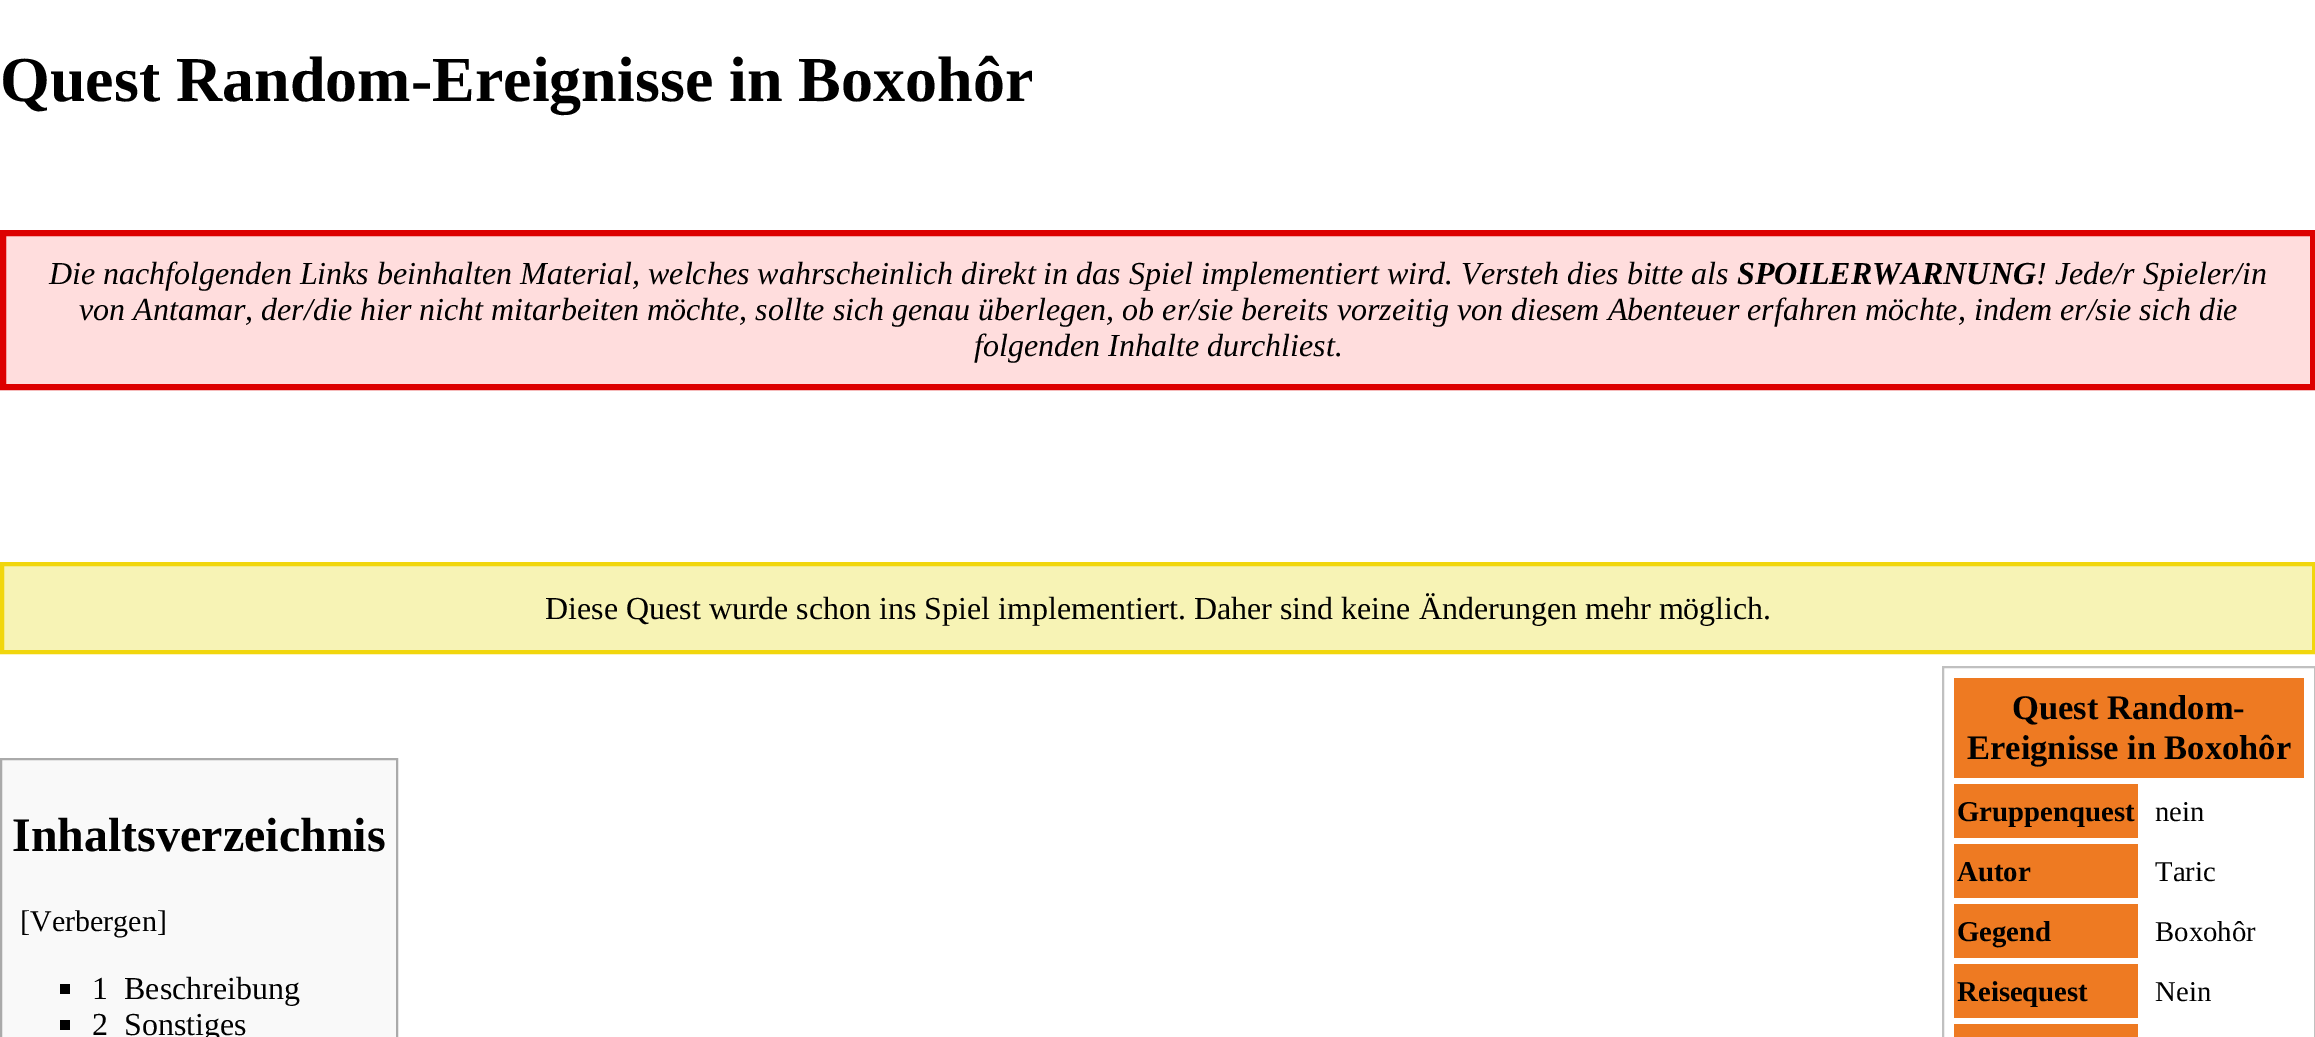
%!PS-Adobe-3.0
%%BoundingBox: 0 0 2315 1037
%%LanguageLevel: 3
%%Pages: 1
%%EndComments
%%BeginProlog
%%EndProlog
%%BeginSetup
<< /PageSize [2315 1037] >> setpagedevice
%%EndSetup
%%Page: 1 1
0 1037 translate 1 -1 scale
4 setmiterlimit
1 setgray
0 0 2315 1037 rectfill
1 0.867 0.867 setrgbcolor
newpath 3 233 moveto 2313 233 lineto 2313 387 lineto 3 387 lineto closepath gsave fill grestore
0.867 0 0 setrgbcolor
6 setlinewidth
stroke
0.969 0.953 0.71 setrgbcolor
newpath 2 564 moveto 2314 564 lineto 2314 652 lineto 2 652 lineto closepath gsave fill grestore
0.945 0.839 0.051 setrgbcolor
4 setlinewidth
stroke
0.976 setgray
newpath 1 759 moveto 397 759 lineto 397 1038 lineto 1 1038 lineto closepath gsave fill grestore
0.667 setgray
2 setlinewidth
stroke
0 setgray
60 984 10 10 rectfill
60 1020 10 10 rectfill
0.753 setgray
1943 667 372 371 rectstroke
0.933 0.478 0.133 setrgbcolor
1954 678 350 100 rectfill
1954 784 184 54 rectfill
1954 844 184 54 rectfill
1954 904 184 54 rectfill
1954 964 184 54 rectfill
1954 1024 184 13 rectfill
/LiberationSerif-Bold [64 0 0 -64 0 0] selectfont
0 setgray
0 101 moveto (Quest Random-Ereignisse in Boxohôr) show
/LiberationSerif-Italic [32 0 0 -32 0 0] selectfont
49 284 moveto (Die nachfolgenden Links beinhalten Material, welches wahrscheinlich direkt in das Spiel implementiert wird. Versteh dies bitte als) show
/LiberationSerif-BoldItalic [32 0 0 -32 0 0] selectfont
1737 284 moveto (SPOILERWARNUNG) show
/LiberationSerif-Italic [32 0 0 -32 0 0] selectfont
2036 284 moveto (! Jede/r Spieler/in) show
79 320 moveto (von Antamar, der/die hier nicht mitarbeiten möchte, sollte sich genau überlegen, ob er/sie bereits vorzeitig von diesem Abenteuer erfahren möchte, indem er/sie sich die) show
974 356 moveto (folgenden Inhalte durchliest.) show
/LiberationSerif-Regular [32 0 0 -32 0 0] selectfont
545 619 moveto (Diese Quest wurde schon ins Spiel implementiert. Daher sind keine Änderungen mehr möglich.) show
/LiberationSerif-Bold [48 0 0 -48 0 0] selectfont
12 851 moveto (Inhaltsverzeichnis) show
/LiberationSerif-Regular [30 0 0 -30 0 0] selectfont
20 931 moveto ([Verbergen]) show
/LiberationSerif-Regular [32 0 0 -32 0 0] selectfont
92 999 moveto (1) show
124 999 moveto (Beschreibung) show
92 1035 moveto (2) show
124 1035 moveto (Sonstiges) show
/LiberationSerif-Bold [34.5 0 0 -34.5 0 0] selectfont
2012 719 moveto (Quest Random-) show
1967 759 moveto (Ereignisse in Boxohôr) show
/LiberationSerif-Bold [28.75 0 0 -28.75 0 0] selectfont
1957 821 moveto (Gruppenquest) show
/LiberationSerif-Regular [28.75 0 0 -28.75 0 0] selectfont
2155 821 moveto (nein) show
/LiberationSerif-Bold [28.75 0 0 -28.75 0 0] selectfont
1957 881 moveto (Autor) show
/LiberationSerif-Regular [28.75 0 0 -28.75 0 0] selectfont
2155 881 moveto (Taric) show
/LiberationSerif-Bold [28.75 0 0 -28.75 0 0] selectfont
1957 941 moveto (Gegend) show
/LiberationSerif-Regular [28.75 0 0 -28.75 0 0] selectfont
2155 941 moveto (Boxohôr) show
/LiberationSerif-Bold [28.75 0 0 -28.75 0 0] selectfont
1957 1001 moveto (Reisequest) show
/LiberationSerif-Regular [28.75 0 0 -28.75 0 0] selectfont
2155 1001 moveto (Nein) show
showpage
%%EOF
